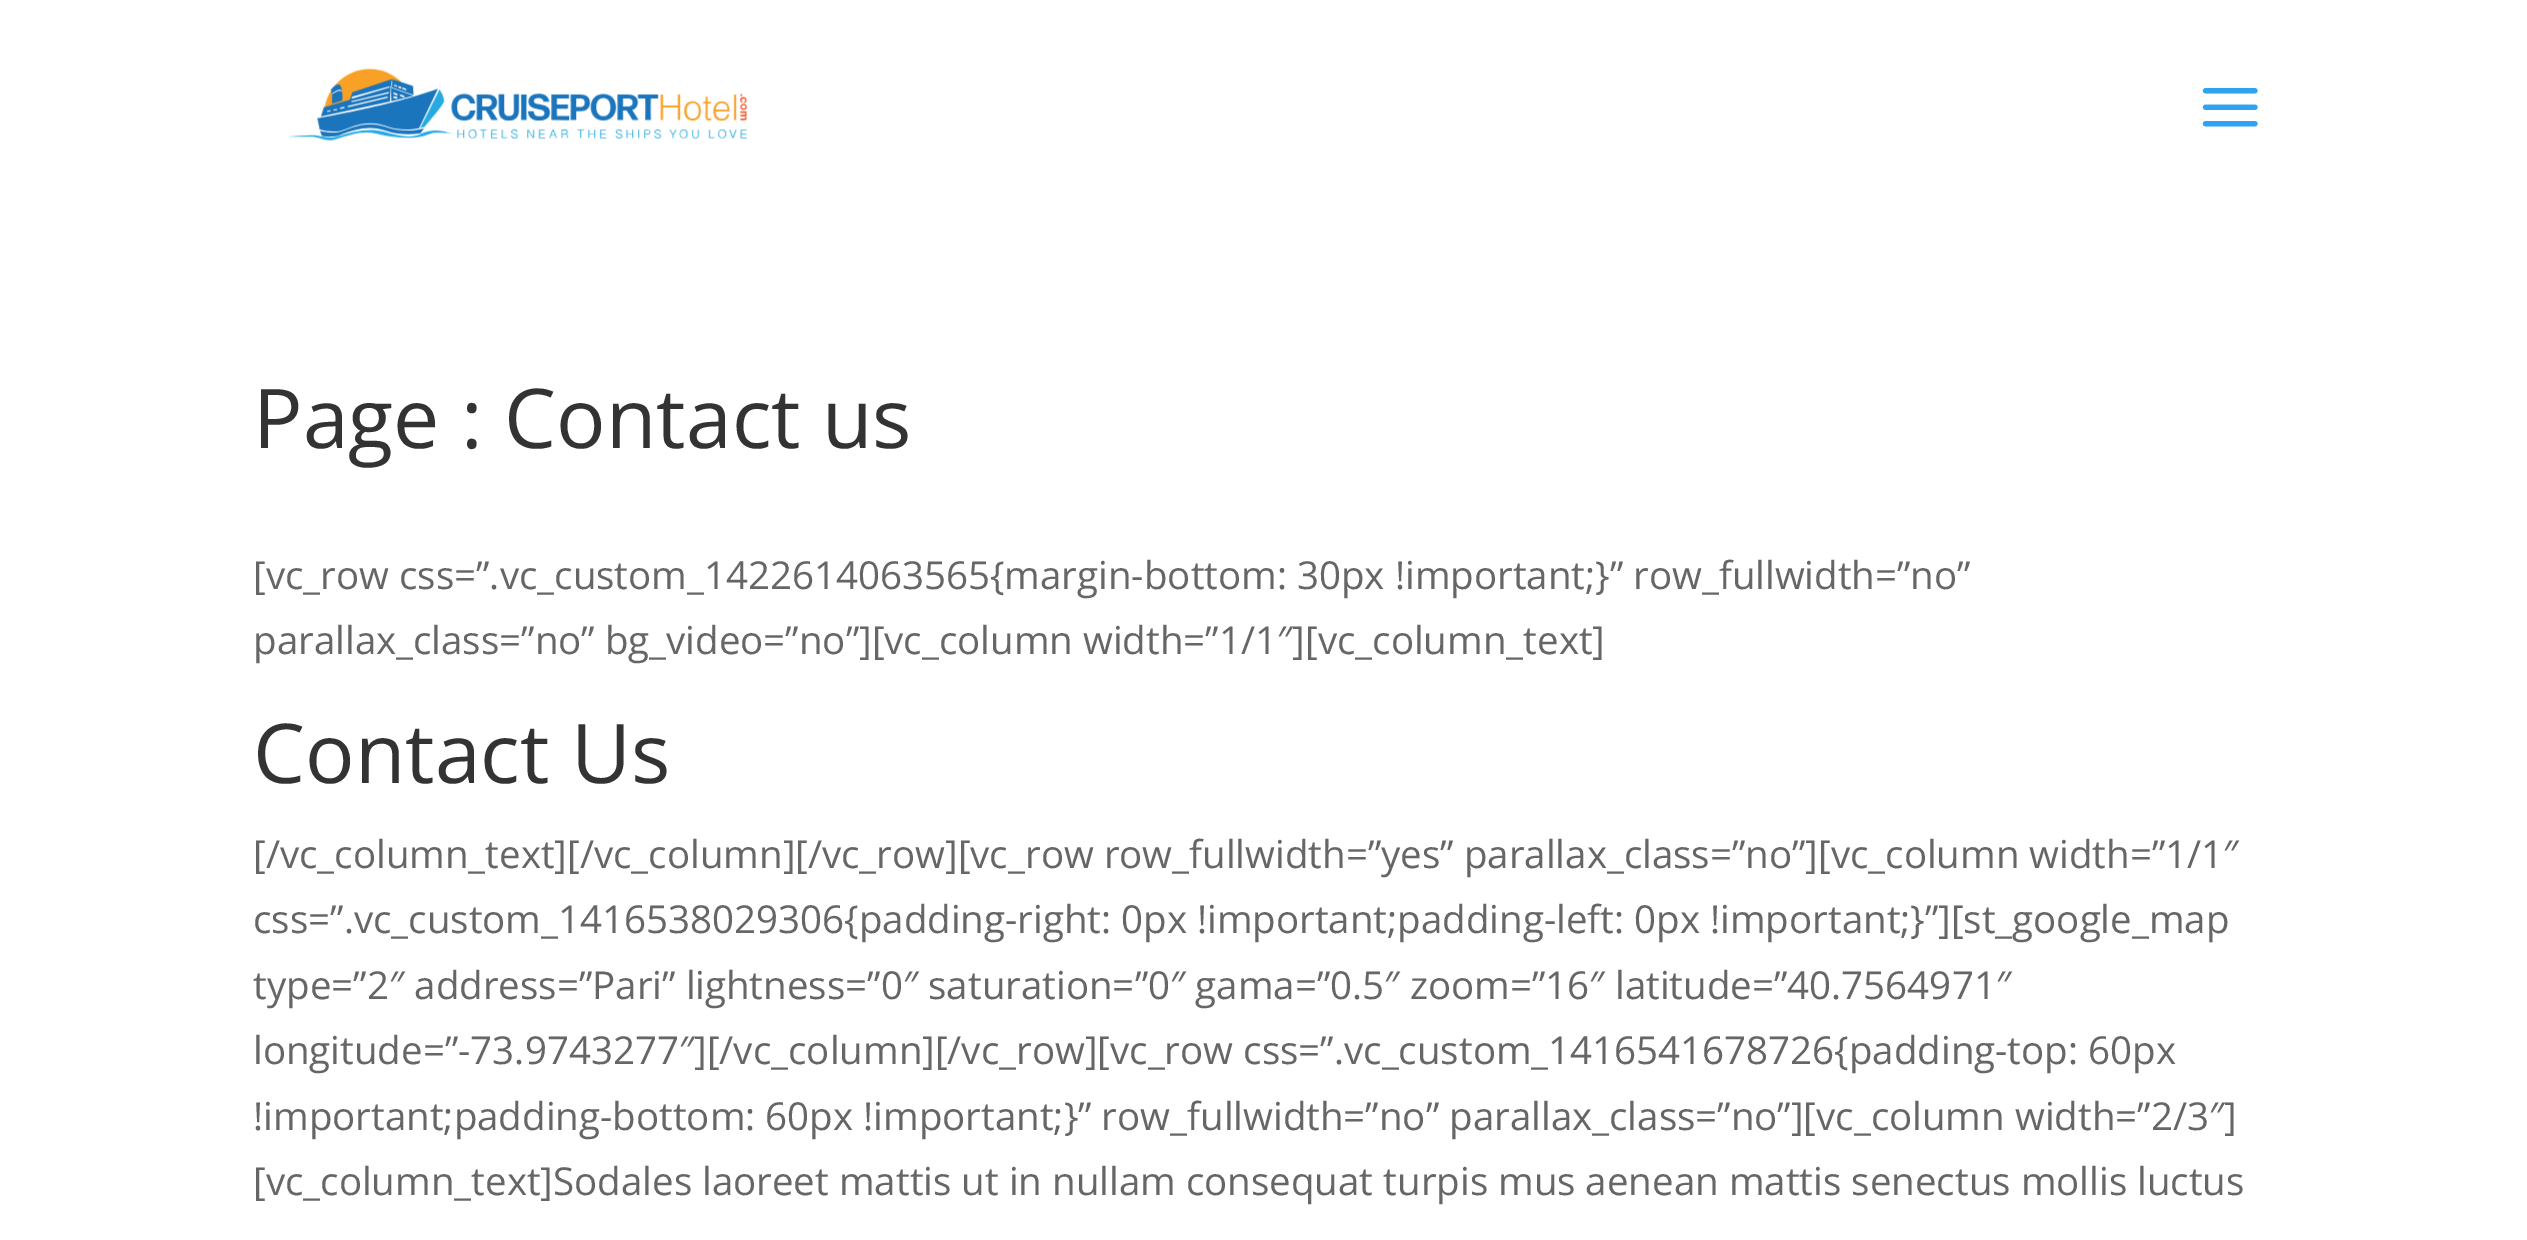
%!PS-Adobe-3.0
%%BoundingBox: 0 0 2527 1240
%%LanguageLevel: 3
%%Pages: 1
%%EndComments
%%BeginProlog
/drawimage { 5 dict begin { /h /w /y /x /name } { exch def } forall
  gsave x y translate w h scale
  w h 8 [w 0 0 h 0 0] name (r) file false 3 colorimage grestore end } def
%%EndProlog
%%BeginSetup
<< /PageSize [2527 1240] >> setpagedevice
%%EndSetup
%%Page: 1 1
0 1240 translate 1 -1 scale
4 setmiterlimit
1 setgray
0 0 2527 1240 rectfill
(images/1.raw) 289 68 459 73 drawimage
(images/2.raw) 2202 88 56 39 drawimage
/OpenSans-Regular [82.5 0 0 -82.5 0 0] selectfont
0.2 setgray
253 448 moveto (Page : Contact us) show
/OpenSans-Regular [38.5 0 0 -38.5 0 0] selectfont
0.4 setgray
253 589 moveto ([vc_row css=”.vc_custom_1422614063565{margin-bottom: 30px !important;}” row_fullwidth=”no”) show
253 654 moveto (parallax_class=”no” bg_video=”no”][vc_column width=”1/1″][vc_column_text]) show
/OpenSans-Regular [82.5 0 0 -82.5 0 0] selectfont
0.2 setgray
253 783 moveto (Contact Us) show
/OpenSans-Regular [38.5 0 0 -38.5 0 0] selectfont
0.4 setgray
253 868 moveto ([/vc_column_text][/vc_column][/vc_row][vc_row row_fullwidth=”yes” parallax_class=”no”][vc_column width=”1/1″) show
253 933 moveto (css=”.vc_custom_1416538029306{padding-right: 0px !important;padding-left: 0px !important;}”][st_google_map) show
253 999 moveto (type=”2″ address=”Pari” lightness=”0″ saturation=”0″ gama=”0.5″ zoom=”16″ latitude=”40.7564971″) show
253 1064 moveto (longitude=”-73.9743277″][/vc_column][/vc_row][vc_row css=”.vc_custom_1416541678726{padding-top: 60px) show
253 1130 moveto (!important;padding-bottom: 60px !important;}” row_fullwidth=”no” parallax_class=”no”][vc_column width=”2/3″]) show
253 1195 moveto ([vc_column_text]Sodales laoreet mattis ut in nullam consequat turpis mus aenean mattis senectus mollis luctus) show
showpage
%%EOF
